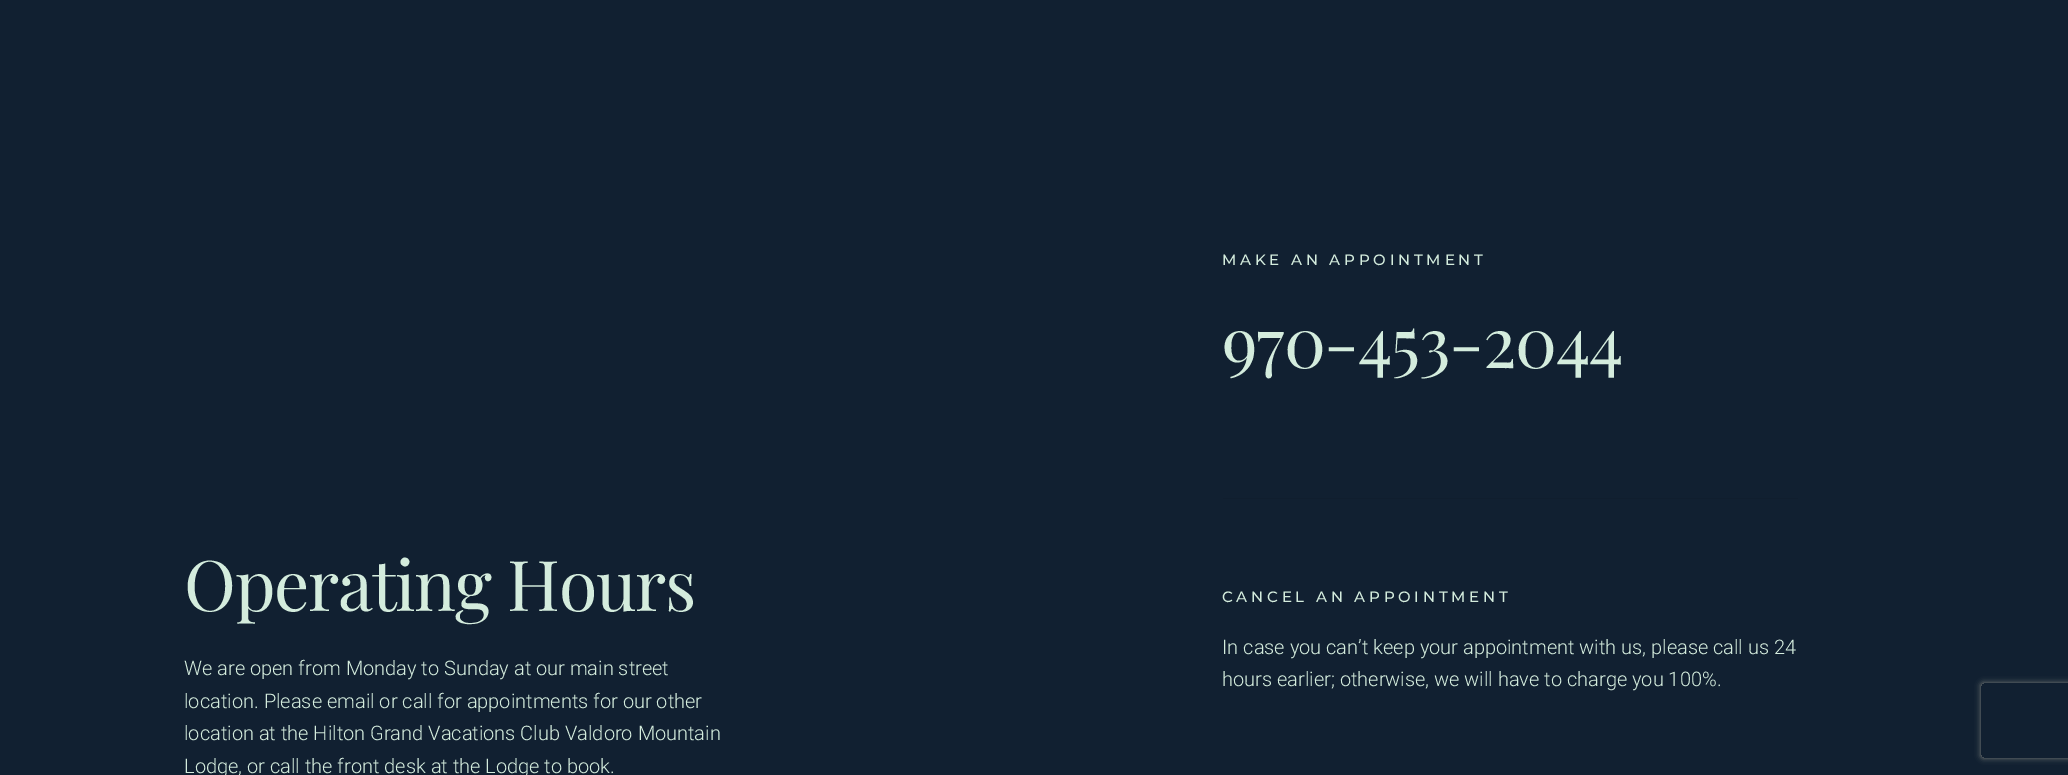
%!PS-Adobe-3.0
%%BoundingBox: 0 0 2068 775
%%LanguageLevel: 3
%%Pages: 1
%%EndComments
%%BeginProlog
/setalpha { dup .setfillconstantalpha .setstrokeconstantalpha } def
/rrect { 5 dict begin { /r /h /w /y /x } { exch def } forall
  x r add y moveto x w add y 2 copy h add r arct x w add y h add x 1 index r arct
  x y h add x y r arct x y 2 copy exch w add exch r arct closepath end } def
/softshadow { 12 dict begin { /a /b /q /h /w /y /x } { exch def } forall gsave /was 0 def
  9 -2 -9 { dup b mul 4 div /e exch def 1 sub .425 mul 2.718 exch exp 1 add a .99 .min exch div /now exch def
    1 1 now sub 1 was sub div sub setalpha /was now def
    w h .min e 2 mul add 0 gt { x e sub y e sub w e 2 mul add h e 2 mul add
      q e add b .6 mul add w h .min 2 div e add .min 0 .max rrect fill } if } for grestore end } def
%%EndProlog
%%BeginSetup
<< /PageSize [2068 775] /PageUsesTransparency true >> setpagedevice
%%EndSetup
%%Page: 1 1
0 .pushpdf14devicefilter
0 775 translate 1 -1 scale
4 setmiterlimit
0.067 0.125 0.192 setrgbcolor
0 0 2068 775 rectfill
0.063 0.118 0.18 setrgbcolor
1223 498 575 1 rectfill
gsave
newpath 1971 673 moveto 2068 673 lineto 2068 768 lineto 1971 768 lineto closepath 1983.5 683 moveto 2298.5 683 lineto 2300 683 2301 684 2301 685.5 curveto 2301 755.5 lineto 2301 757 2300 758 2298.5 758 curveto 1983.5 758 lineto 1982 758 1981 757 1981 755.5 curveto 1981 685.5 lineto 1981 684 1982 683 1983.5 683 curveto closepath eoclip newpath
0.502 setgray
1981 683 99 75 2.5 3 1 softshadow
grestore
/PlayfairDisplay-Regular [70 0 0 -70 0 0] selectfont
0.831 0.925 0.867 setrgbcolor
184 611 moveto -1.25 0 (Operating Hours) ashow
/Roboto-Light [20 0 0 -20 0 0] selectfont
184 675 moveto (We are open from Monday to Sunday at our main street) show
184 708 moveto (location. Please email or call for appointments for our other) show
184 740 moveto (location at the Hilton Grand Vacations Club Valdoro Mountain) show
184 773 moveto (Lodge, or call the front desk at the Lodge to book.) show
/Montserrat-Thin [15 0 0 -15 0 0] selectfont
1222 265 moveto 3.75 0 (MAKE AN APPOINTMENT) ashow
/PlayfairDisplay-Regular [70 0 0 -70 0 0] selectfont
1222 368 moveto -1.25 0 (970-453-2044) ashow
/Montserrat-Thin [15 0 0 -15 0 0] selectfont
1222 602 moveto 3.75 0 (CANCEL AN APPOINTMENT) ashow
/Roboto-Light [20 0 0 -20 0 0] selectfont
1222 654 moveto (In case you can’t keep your appointment with us, please call us 24) show
1222 686 moveto (hours earlier; otherwise, we will have to charge you 100%.) show
.poppdf14devicefilter showpage
%%EOF
